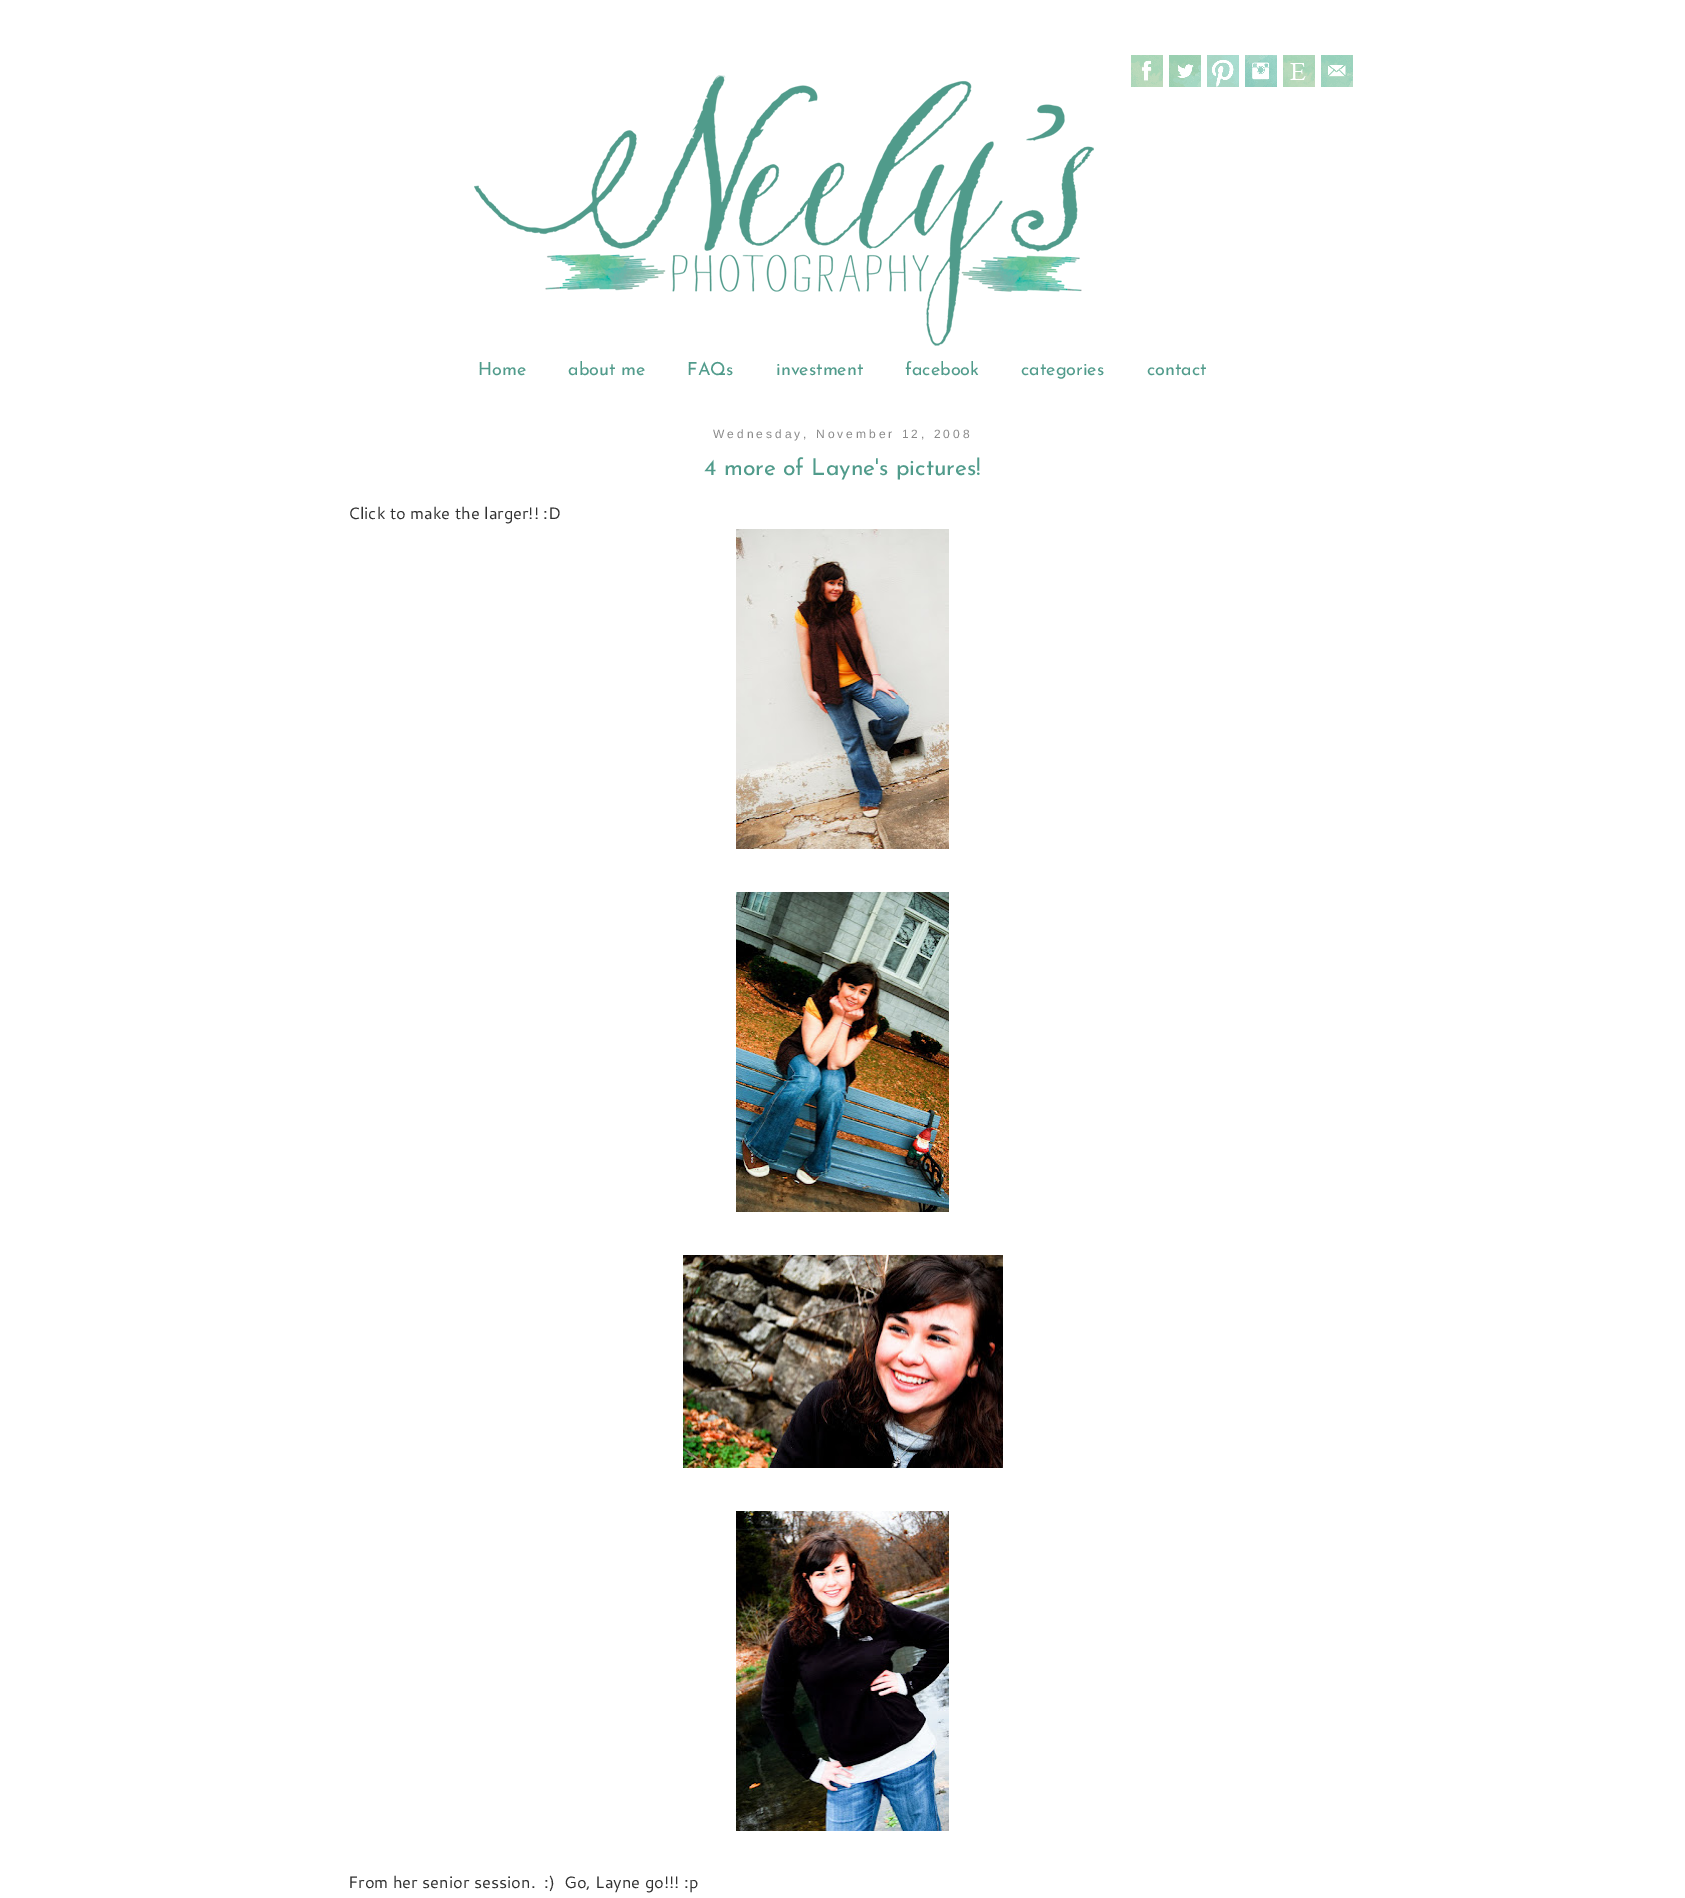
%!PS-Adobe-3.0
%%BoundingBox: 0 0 1685 1898
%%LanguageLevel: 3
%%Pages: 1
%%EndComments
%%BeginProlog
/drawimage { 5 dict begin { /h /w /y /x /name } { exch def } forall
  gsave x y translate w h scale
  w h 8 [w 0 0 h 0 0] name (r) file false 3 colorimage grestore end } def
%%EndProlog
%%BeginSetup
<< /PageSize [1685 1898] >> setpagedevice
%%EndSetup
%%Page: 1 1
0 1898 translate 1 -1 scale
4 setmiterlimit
1 setgray
0 0 1685 1898 rectfill
(images/1.raw) 1131 55 32 32 drawimage
(images/2.raw) 1169 55 32 32 drawimage
(images/3.raw) 1207 55 32 32 drawimage
(images/4.raw) 1245 55 32 32 drawimage
(images/5.raw) 1283 55 32 32 drawimage
(images/6.raw) 1321 55 32 32 drawimage
(images/7.raw) 474 75 620 271 drawimage
(images/8.raw) 736 529 213 320 drawimage
(images/9.raw) 736 892 213 320 drawimage
(images/10.raw) 683 1255 320 213 drawimage
(images/11.raw) 736 1511 213 320 drawimage
/JosefinSans-Thin [18 0 0 -18 0 0] selectfont
0.314 0.608 0.545 setrgbcolor
478 375 moveto (Home) show
568 375 moveto (about me) show
687 375 moveto (FAQs) show
776 375 moveto (investment) show
905 375 moveto (facebook) show
1021 375 moveto (categories) show
1147 375 moveto (contact) show
/Arimo-Regular [12 0 0 -12 0 0] selectfont
0.541 setgray
713 438 moveto 3 0 (Wednesday, November 12, 2008) ashow
/JosefinSans-Thin [23 0 0 -23 0 0] selectfont
0.314 0.608 0.545 setrgbcolor
704 475 moveto (4 more of Layne's pictures!) show
/Cantarell-Regular [16.5 0 0 -16.5 0 0] selectfont
0.192 setgray
348 519 moveto (Click to make the larger!! :D) show
348 1888 moveto (From her senior session.  :\)  Go, Layne go!!! :p) show
showpage
%%EOF
